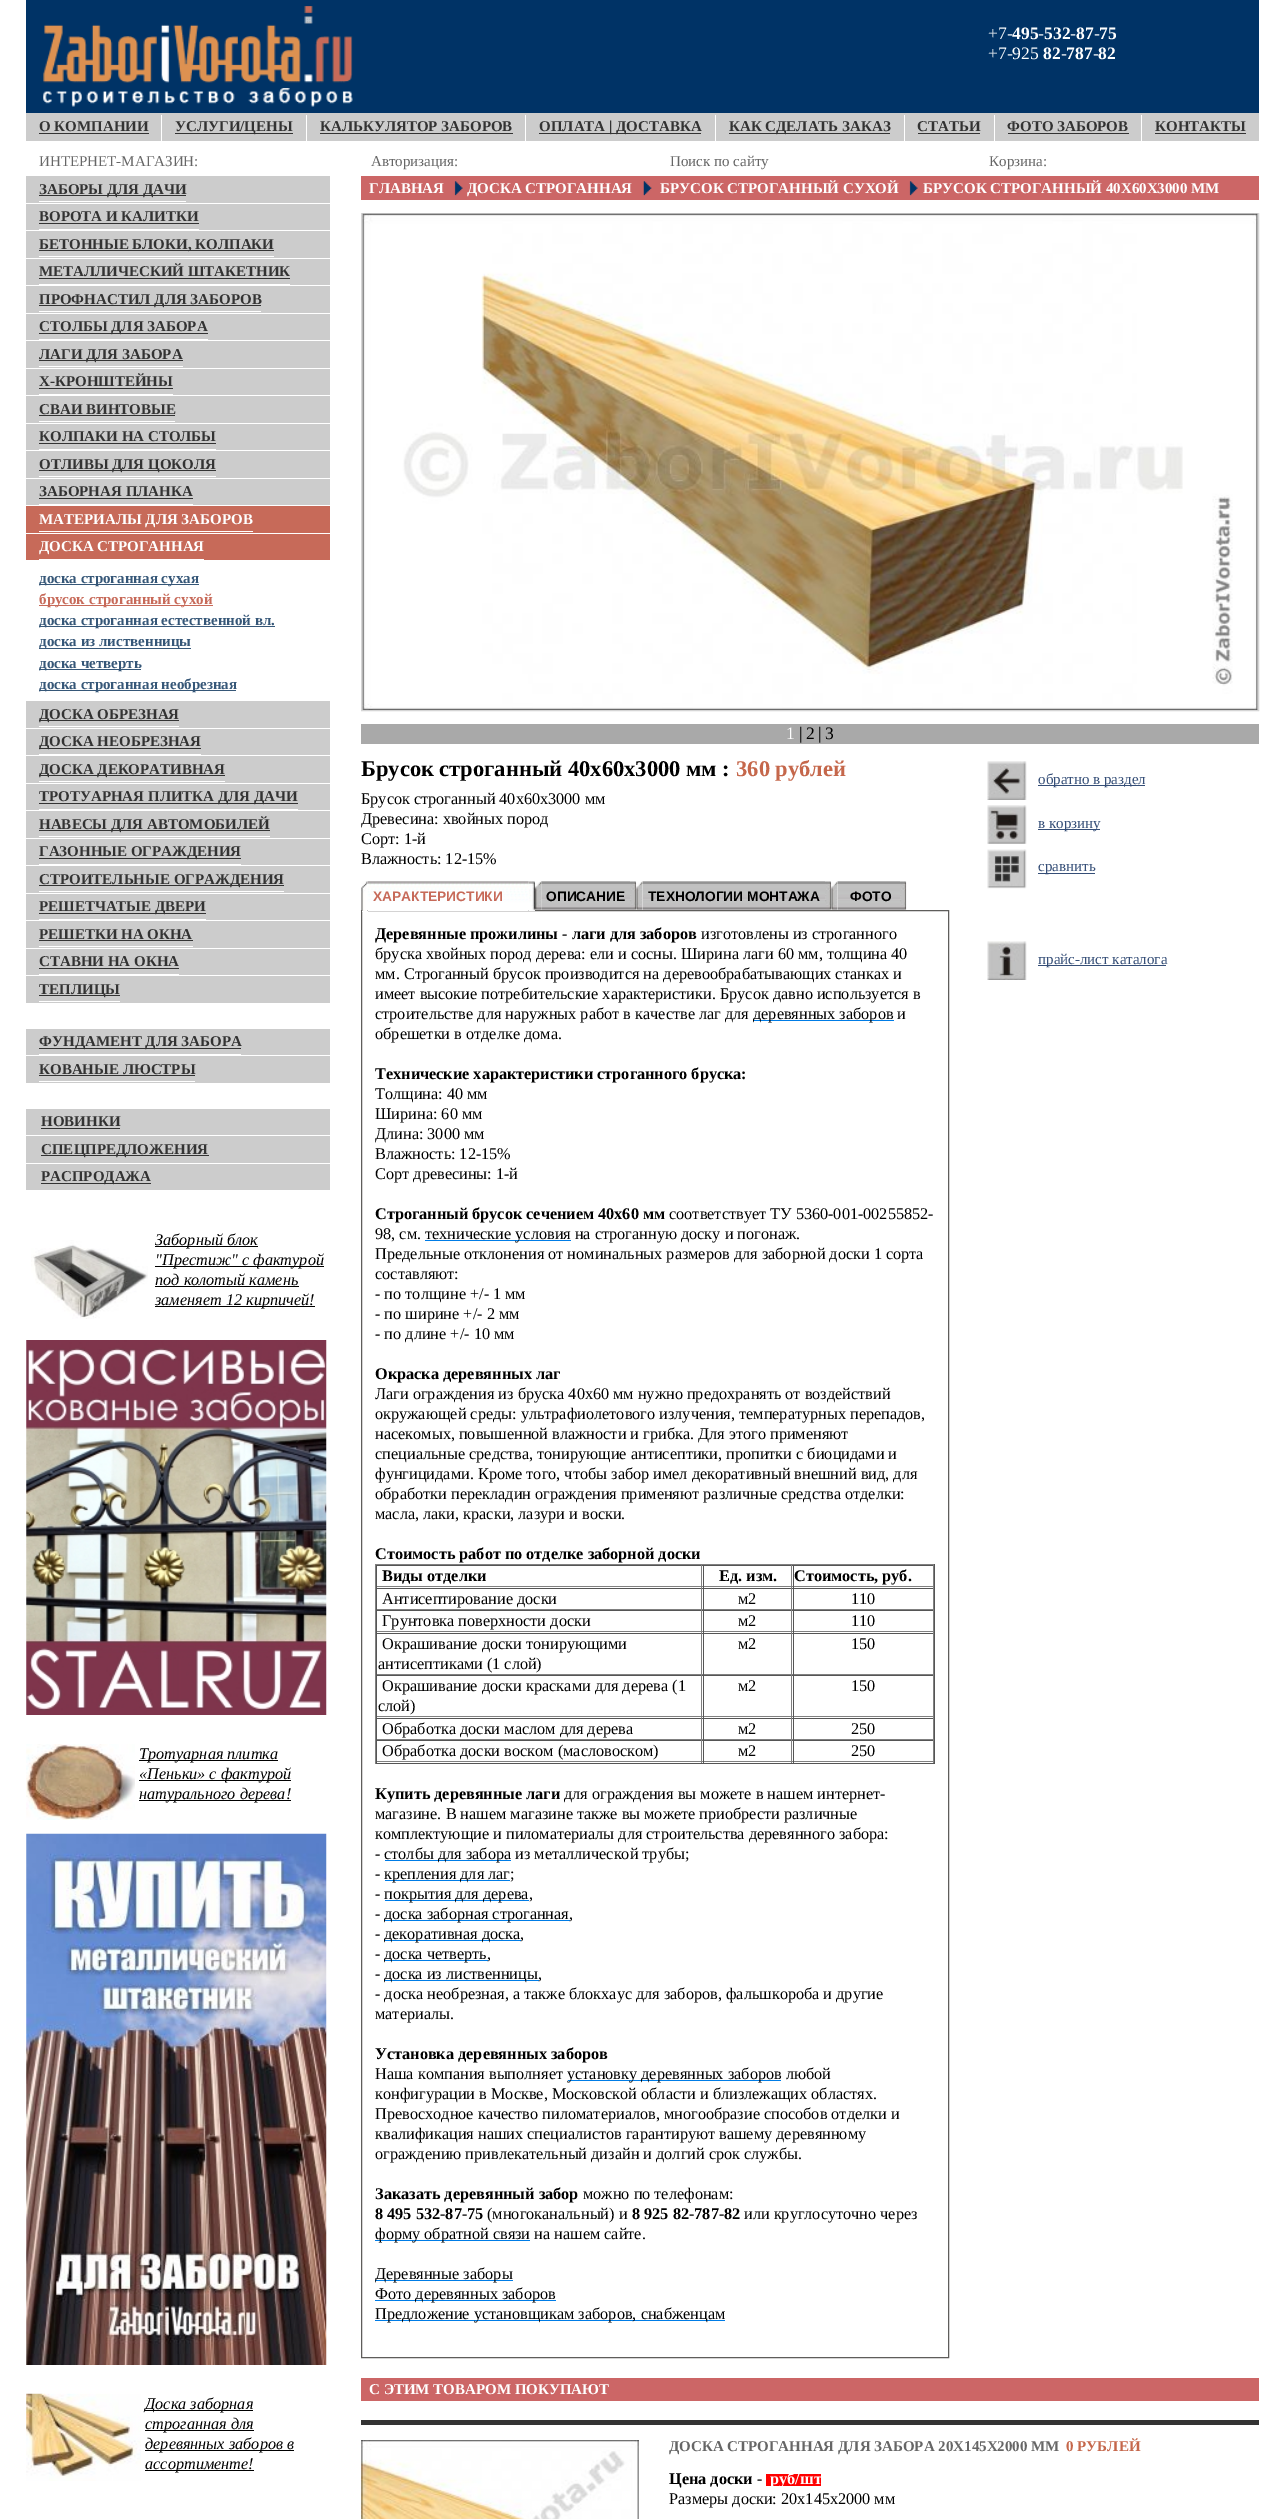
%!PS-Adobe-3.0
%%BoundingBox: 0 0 1284 2519
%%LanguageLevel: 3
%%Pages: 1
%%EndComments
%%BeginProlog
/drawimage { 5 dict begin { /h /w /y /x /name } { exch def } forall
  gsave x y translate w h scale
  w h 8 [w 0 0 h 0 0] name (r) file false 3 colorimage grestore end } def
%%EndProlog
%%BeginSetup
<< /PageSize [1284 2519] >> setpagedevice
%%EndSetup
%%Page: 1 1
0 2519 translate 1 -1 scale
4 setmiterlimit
1 setgray
0 0 1284 2519 rectfill
0 0.2 0.4 setrgbcolor
26 0 1233 113 rectfill
(images/1.raw) 43 6 310 101 drawimage
0.8 setgray
26 113 1233 28 rectfill
0.2 setgray
39 133 110 1 rectfill
1 setgray
161 115 1 26 rectfill
0.2 setgray
175 133 118 1 rectfill
1 setgray
306 115 1 26 rectfill
0.2 setgray
320 133 193 1 rectfill
1 setgray
525 115 1 26 rectfill
0.2 setgray
539 133 162 1 rectfill
1 setgray
715 115 1 26 rectfill
0.2 setgray
729 133 161 1 rectfill
1 setgray
904 115 1 26 rectfill
0.2 setgray
918 133 62 1 rectfill
1 setgray
994 115 1 26 rectfill
0.2 setgray
1008 133 121 1 rectfill
1 setgray
1141 115 1 26 rectfill
0.2 setgray
1155 133 91 1 rectfill
0.8 setgray
26 176 304 27 rectfill
1 setgray
39 201 147 1 rectfill
0.2 setgray
39 195 147 1 rectfill
0.8 setgray
26 204 304 26 rectfill
1 setgray
39 229 160 1 rectfill
0.2 setgray
39 223 160 1 rectfill
0.8 setgray
26 231 304 27 rectfill
1 setgray
39 256 235 1 rectfill
0.2 setgray
39 250 235 1 rectfill
0.8 setgray
26 259 304 26 rectfill
1 setgray
39 284 251 1 rectfill
0.2 setgray
39 278 251 1 rectfill
0.8 setgray
26 286 304 27 rectfill
1 setgray
39 311 222 1 rectfill
0.2 setgray
39 305 222 1 rectfill
0.8 setgray
26 314 304 26 rectfill
1 setgray
39 339 169 1 rectfill
0.2 setgray
39 333 169 1 rectfill
0.8 setgray
26 341 304 27 rectfill
1 setgray
39 366 144 1 rectfill
0.2 setgray
39 360 144 1 rectfill
0.8 setgray
26 369 304 26 rectfill
1 setgray
39 394 134 1 rectfill
0.2 setgray
39 388 134 1 rectfill
0.8 setgray
26 396 304 27 rectfill
1 setgray
39 421 136 1 rectfill
0.2 setgray
39 415 136 1 rectfill
0.8 setgray
26 424 304 26 rectfill
1 setgray
39 449 177 1 rectfill
0.2 setgray
39 443 177 1 rectfill
0.8 setgray
26 451 304 27 rectfill
1 setgray
39 476 177 1 rectfill
0.2 setgray
39 470 177 1 rectfill
0.8 setgray
26 479 304 26 rectfill
1 setgray
39 504 154 1 rectfill
0.2 setgray
39 498 154 1 rectfill
0.78 0.416 0.349 setrgbcolor
26 506 304 27 rectfill
1 setgray
39 531 214 1 rectfill
0.78 0.416 0.349 setrgbcolor
26 534 304 26 rectfill
1 setgray
39 559 165 1 rectfill
0.212 0.341 0.471 setrgbcolor
39 584 160 1 rectfill
0.78 0.416 0.349 setrgbcolor
39 605 174 1 rectfill
0.212 0.341 0.471 setrgbcolor
39 626 236 1 rectfill
39 648 152 1 rectfill
39 669 102 1 rectfill
39 690 197 1 rectfill
0.8 setgray
26 701 304 27 rectfill
1 setgray
39 726 140 1 rectfill
0.2 setgray
39 720 140 1 rectfill
0.8 setgray
26 729 304 26 rectfill
1 setgray
39 754 162 1 rectfill
0.2 setgray
39 748 162 1 rectfill
0.8 setgray
26 756 304 27 rectfill
1 setgray
39 781 186 1 rectfill
0.2 setgray
39 775 186 1 rectfill
0.8 setgray
26 784 304 26 rectfill
1 setgray
39 809 259 1 rectfill
0.2 setgray
39 803 259 1 rectfill
0.8 setgray
26 811 304 27 rectfill
1 setgray
39 836 231 1 rectfill
0.2 setgray
39 830 231 1 rectfill
0.8 setgray
26 839 304 26 rectfill
1 setgray
39 864 202 1 rectfill
0.2 setgray
39 858 202 1 rectfill
0.8 setgray
26 866 304 27 rectfill
1 setgray
39 891 245 1 rectfill
0.2 setgray
39 885 245 1 rectfill
0.8 setgray
26 894 304 26 rectfill
1 setgray
39 919 167 1 rectfill
0.2 setgray
39 913 167 1 rectfill
0.8 setgray
26 921 304 27 rectfill
1 setgray
39 946 154 1 rectfill
0.2 setgray
39 940 154 1 rectfill
0.8 setgray
26 949 304 26 rectfill
1 setgray
39 974 140 1 rectfill
0.2 setgray
39 968 140 1 rectfill
0.8 setgray
26 976 304 27 rectfill
1 setgray
39 1001 81 1 rectfill
0.2 setgray
39 995 81 1 rectfill
0.8 setgray
26 1029 304 26 rectfill
1 setgray
39 1054 202 1 rectfill
0.2 setgray
39 1048 202 1 rectfill
0.8 setgray
26 1056 304 27 rectfill
1 setgray
39 1081 156 1 rectfill
0.2 setgray
39 1075 156 1 rectfill
0.8 setgray
26 1109 304 81 rectfill
1 setgray
26 1135 304 1 rectfill
0.2 setgray
41 1128 79 1 rectfill
1 setgray
26 1163 304 1 rectfill
0.2 setgray
41 1155 168 1 rectfill
41 1183 110 1 rectfill
(images/2.raw) 31 1240 117 79 drawimage
0 setgray
155 1246 103 1 rectfill
155 1266 169 1 rectfill
155 1286 144 1 rectfill
155 1306 160 1 rectfill
(images/3.raw) 26 1340 301 375 drawimage
(images/4.raw) 26 1744 109 76 drawimage
139 1760 139 1 rectfill
139 1780 152 1 rectfill
139 1800 152 1 rectfill
(images/5.raw) 26 1833 301 532 drawimage
(images/6.raw) 26 2393 115 88 drawimage
145 2410 108 1 rectfill
145 2430 109 1 rectfill
145 2450 149 1 rectfill
145 2470 109 1 rectfill
0.8 0.4 0.4 setrgbcolor
361 176 898 24 rectfill
(images/7.raw) 454 181 9 15 drawimage
(images/8.raw) 643 181 9 15 drawimage
(images/7.raw) 909 181 9 15 drawimage
0.835 setgray
361.5 213.5 897 497 rectstroke
(images/9.raw) 362 213 896 497 drawimage
0.663 setgray
361 724 898 20 rectfill
0.369 0.365 0.357 setrgbcolor
361.5 910.5 587 1447 rectstroke
(images/11.raw) 367 881 162 30 drawimage
(images/10.raw) 361 881 7 31 drawimage
(images/12.raw) 529 881 6 30 drawimage
(images/14.raw) 541 881 89 29 drawimage
(images/13.raw) 535 881 7 29 drawimage
(images/15.raw) 630 881 7 29 drawimage
(images/17.raw) 642 881 183 29 drawimage
(images/16.raw) 636 881 7 29 drawimage
(images/18.raw) 825 881 7 29 drawimage
(images/19.raw) 837 881 63 29 drawimage
(images/16.raw) 831 881 7 29 drawimage
(images/15.raw) 900 881 7 29 drawimage
0 0.486 0.902 setrgbcolor
753 1020 141 1 rectfill
425 1240 146 1 rectfill
0.502 setgray
375 1564 560 1 rectfill
0.333 setgray
934 1564 1 200 rectfill
375 1763 560 1 rectfill
0.502 setgray
375 1564 1 200 rectfill
0.333 setgray
376 1565 558 1 rectfill
0.502 setgray
701 1565 1 23 rectfill
376 1586 327 1 rectfill
0.333 setgray
376 1565 1 23 rectfill
0.502 setgray
791 1565 1 23 rectfill
703 1586 90 1 rectfill
0.333 setgray
703 1565 1 23 rectfill
0.502 setgray
933 1565 1 23 rectfill
793 1586 141 1 rectfill
0.333 setgray
793 1565 1 23 rectfill
376 1588 558 1 rectfill
0.502 setgray
701 1588 1 22 rectfill
376 1609 327 1 rectfill
0.333 setgray
376 1588 1 22 rectfill
0.502 setgray
791 1588 1 22 rectfill
703 1609 90 1 rectfill
0.333 setgray
703 1588 1 22 rectfill
0.502 setgray
933 1588 1 22 rectfill
793 1609 141 1 rectfill
0.333 setgray
793 1588 1 22 rectfill
376 1610 558 1 rectfill
0.502 setgray
701 1610 1 23 rectfill
376 1631 327 1 rectfill
0.333 setgray
376 1610 1 23 rectfill
0.502 setgray
791 1610 1 23 rectfill
703 1631 90 1 rectfill
0.333 setgray
703 1610 1 23 rectfill
0.502 setgray
933 1610 1 23 rectfill
793 1631 141 1 rectfill
0.333 setgray
793 1610 1 23 rectfill
376 1633 558 1 rectfill
0.502 setgray
701 1633 1 42 rectfill
376 1674 327 1 rectfill
0.333 setgray
376 1633 1 42 rectfill
0.502 setgray
791 1633 1 42 rectfill
703 1674 90 1 rectfill
0.333 setgray
703 1633 1 42 rectfill
0.502 setgray
933 1633 1 42 rectfill
793 1674 141 1 rectfill
0.333 setgray
793 1633 1 42 rectfill
376 1675 558 1 rectfill
0.502 setgray
701 1675 1 43 rectfill
376 1716 327 1 rectfill
0.333 setgray
376 1675 1 43 rectfill
0.502 setgray
791 1675 1 43 rectfill
703 1716 90 1 rectfill
0.333 setgray
703 1675 1 43 rectfill
0.502 setgray
933 1675 1 43 rectfill
793 1716 141 1 rectfill
0.333 setgray
793 1675 1 43 rectfill
376 1718 558 1 rectfill
0.502 setgray
701 1718 1 22 rectfill
376 1739 327 1 rectfill
0.333 setgray
376 1718 1 22 rectfill
0.502 setgray
791 1718 1 22 rectfill
703 1739 90 1 rectfill
0.333 setgray
703 1718 1 22 rectfill
0.502 setgray
933 1718 1 22 rectfill
793 1739 141 1 rectfill
0.333 setgray
793 1718 1 22 rectfill
376 1740 558 1 rectfill
0.502 setgray
701 1740 1 23 rectfill
376 1761 327 1 rectfill
0.333 setgray
376 1740 1 23 rectfill
0.502 setgray
791 1740 1 23 rectfill
703 1761 90 1 rectfill
0.333 setgray
703 1740 1 23 rectfill
0.502 setgray
933 1740 1 23 rectfill
793 1761 141 1 rectfill
0.333 setgray
793 1740 1 23 rectfill
0 0.486 0.902 setrgbcolor
385 1860 126 1 rectfill
385 1880 125 1 rectfill
385 1900 144 1 rectfill
385 1920 185 1 rectfill
385 1940 136 1 rectfill
385 1960 103 1 rectfill
385 1980 154 1 rectfill
568 2080 213 1 rectfill
375 2240 155 1 rectfill
375 2280 138 1 rectfill
375 2300 181 1 rectfill
375 2320 350 1 rectfill
(images/20.raw) 987 761 40 39 drawimage
0.208 0.306 0.467 setrgbcolor
1038 785 107 1 rectfill
(images/21.raw) 987 805 40 39 drawimage
1038 829 62 1 rectfill
(images/22.raw) 987 849 40 40 drawimage
1038 873 57 1 rectfill
(images/23.raw) 987 941 40 39 drawimage
1038 965 128 1 rectfill
0.8 0.4 0.4 setrgbcolor
361 2378 898 23 rectfill
0.2 setgray
361 2420 898 5 rectfill
(images/24.raw) 361 2440 278 79 drawimage
1 0 0 setrgbcolor
766 2474 55 12 rectfill
/LiberationSerif-Regular [17.5 0 0 -17.5 0 0] selectfont
1 setgray
988 39 moveto (+7-) show
/LiberationSerif-Bold [17.5 0 0 -17.5 0 0] selectfont
1012 39 moveto (495-532-87-75) show
/LiberationSerif-Regular [17.5 0 0 -17.5 0 0] selectfont
988 59 moveto (+7-925) show
/LiberationSerif-Bold [17.5 0 0 -17.5 0 0] selectfont
1043 59 moveto (82-787-82) show
/LiberationSerif-Bold [15 0 0 -15 0 0] selectfont
0.2 setgray
39 131 moveto (О КОМПАНИИ) show
175 131 moveto (УСЛУГИ/ЦЕНЫ) show
320 131 moveto (КАЛЬКУЛЯТОР ЗАБОРОВ) show
539 131 moveto (ОПЛАТА | ДОСТАВКА) show
729 131 moveto (КАК СДЕЛАТЬ ЗАКАЗ) show
917 131 moveto (СТАТЬИ) show
1007 131 moveto (ФОТО ЗАБОРОВ) show
1155 131 moveto (КОНТАКТЫ) show
/LiberationSerif-Regular [15 0 0 -15 0 0] selectfont
0.4 setgray
39 166 moveto (ИНТЕРНЕТ-МАГАЗИН:) show
/LiberationSerif-Bold [15 0 0 -15 0 0] selectfont
0.2 setgray
39 194 moveto (ЗАБОРЫ ДЛЯ ДАЧИ) show
39 221 moveto (ВОРОТА И КАЛИТКИ) show
39 249 moveto (БЕТОННЫЕ БЛОКИ, КОЛПАКИ) show
39 276 moveto (МЕТАЛЛИЧЕСКИЙ ШТАКЕТНИК) show
39 304 moveto (ПРОФНАСТИЛ ДЛЯ ЗАБОРОВ) show
39 331 moveto (СТОЛБЫ ДЛЯ ЗАБОРА) show
39 359 moveto (ЛАГИ ДЛЯ ЗАБОРА) show
39 386 moveto (Х-КРОНШТЕЙНЫ) show
39 414 moveto (СВАИ ВИНТОВЫЕ) show
39 441 moveto (КОЛПАКИ НА СТОЛБЫ) show
39 469 moveto (ОТЛИВЫ ДЛЯ ЦОКОЛЯ) show
39 496 moveto (ЗАБОРНАЯ ПЛАНКА) show
1 setgray
39 524 moveto (МАТЕРИАЛЫ ДЛЯ ЗАБОРОВ) show
39 551 moveto (ДОСКА СТРОГАННАЯ) show
0.212 0.341 0.471 setrgbcolor
39 583 moveto (доска строганная сухая) show
0.78 0.416 0.349 setrgbcolor
39 604 moveto (брусок строганный сухой) show
0.212 0.341 0.471 setrgbcolor
39 625 moveto (доска строганная естественной вл.) show
39 646 moveto (доска из лиственницы) show
39 668 moveto (доска четверть) show
39 689 moveto (доска строганная необрезная) show
0.2 setgray
39 719 moveto (ДОСКА ОБРЕЗНАЯ) show
39 746 moveto (ДОСКА НЕОБРЕЗНАЯ) show
39 774 moveto (ДОСКА ДЕКОРАТИВНАЯ) show
39 801 moveto (ТРОТУАРНАЯ ПЛИТКА ДЛЯ ДАЧИ) show
39 829 moveto (НАВЕСЫ ДЛЯ АВТОМОБИЛЕЙ) show
39 856 moveto (ГАЗОННЫЕ ОГРАЖДЕНИЯ) show
39 884 moveto (СТРОИТЕЛЬНЫЕ ОГРАЖДЕНИЯ) show
39 911 moveto (РЕШЕТЧАТЫЕ ДВЕРИ) show
39 939 moveto (РЕШЕТКИ НА ОКНА) show
39 966 moveto (СТАВНИ НА ОКНА) show
39 994 moveto (ТЕПЛИЦЫ) show
39 1046 moveto (ФУНДАМЕНТ ДЛЯ ЗАБОРА) show
39 1074 moveto (КОВАНЫЕ ЛЮСТРЫ) show
41 1126 moveto (НОВИНКИ) show
41 1154 moveto (СПЕЦПРЕДЛОЖЕНИЯ) show
41 1181 moveto (РАСПРОДАЖА) show
/LiberationSerif-Italic [16.25 0 0 -16.25 0 0] selectfont
0 setgray
155 1245 moveto (Заборный блок) show
155 1265 moveto ("Престиж" с фактурой) show
155 1285 moveto (под колотый камень) show
155 1305 moveto (заменяет 12 кирпичей!) show
139 1759 moveto (Тротуарная плитка) show
139 1779 moveto («Пеньки» с фактурой) show
139 1799 moveto (натурального дерева!) show
145 2409 moveto (Доска заборная) show
145 2429 moveto (строганная для) show
145 2449 moveto (деревянных заборов в) show
145 2469 moveto (ассортименте!) show
/LiberationSerif-Regular [15 0 0 -15 0 0] selectfont
0.4 setgray
371 166 moveto (Авторизация:) show
670 166 moveto (Поиск по сайту) show
989 166 moveto (Корзина:) show
/LiberationSerif-Bold [15 0 0 -15 0 0] selectfont
1 setgray
369 193 moveto (ГЛАВНАЯ) show
467 193 moveto (ДОСКА СТРОГАННАЯ) show
660 193 moveto (БРУСОК СТРОГАННЫЙ СУХОЙ) show
923 193 moveto (БРУСОК СТРОГАННЫЙ 40Х60Х3000 ММ) show
/LiberationSerif-Regular [17.5 0 0 -17.5 0 0] selectfont
786 739 moveto (1) show
0 setgray
799 739 moveto (|) show
806 739 moveto (2) show
818 739 moveto (|) show
825 739 moveto (3) show
/LiberationSerif-Bold [22.5 0 0 -22.5 0 0] selectfont
361 776 moveto (Брусок строганный 40х60х3000 мм :) show
0.773 0.404 0.294 setrgbcolor
736 776 moveto (360 рублей) show
/LiberationSerif-Regular [16.25 0 0 -16.25 0 0] selectfont
0 setgray
361 804 moveto (Брусок строганный 40х60х3000 мм) show
361 824 moveto (Древесина: хвойных пород) show
361 844 moveto (Сорт: 1-й) show
361 864 moveto (Влажность: 12-15%) show
/LiberationSans-Bold [13.75 0 0 -13.75 0 0] selectfont
0.78 0.416 0.349 setrgbcolor
373 901 moveto (ХАРАКТЕРИСТИКИ) show
0 setgray
546 901 moveto (ОПИСАНИЕ) show
648 901 moveto (ТЕХНОЛОГИИ МОНТАЖА) show
850 901 moveto (ФОТО) show
/LiberationSerif-Bold [16.25 0 0 -16.25 0 0] selectfont
375 939 moveto (Деревянные прожилины - лаги для заборов) show
/LiberationSerif-Regular [16.25 0 0 -16.25 0 0] selectfont
701 939 moveto (изготовлены из строганного) show
375 959 moveto (бруска хвойных пород дерева: ели и сосны. Ширина лаги 60 мм, толщина 40) show
375 979 moveto (мм. Строганный брусок производится на деревообрабатывающих станках и) show
375 999 moveto (имеет высокие потребительские характеристики. Брусок давно используется в) show
375 1019 moveto (строительстве для наружных работ в качестве лаг для) show
753 1019 moveto (деревянных заборов и) show
375 1039 moveto (обрешетки в отделке дома.) show
/LiberationSerif-Bold [16.25 0 0 -16.25 0 0] selectfont
375 1079 moveto (Технические характеристики строганного бруска:) show
/LiberationSerif-Regular [16.25 0 0 -16.25 0 0] selectfont
375 1099 moveto (Толщина: 40 мм) show
375 1119 moveto (Ширина: 60 мм) show
375 1139 moveto (Длина: 3000 мм) show
375 1159 moveto (Влажность: 12-15%) show
375 1179 moveto (Сорт древесины: 1-й) show
/LiberationSerif-Bold [16.25 0 0 -16.25 0 0] selectfont
375 1219 moveto (Строганный брусок сечением 40х60 мм) show
/LiberationSerif-Regular [16.25 0 0 -16.25 0 0] selectfont
669 1219 moveto (соответствует ТУ 5360-001-00255852-) show
375 1239 moveto (98, см.) show
425 1239 moveto (технические условия на строганную доску и погонаж.) show
375 1259 moveto (Предельные отклонения от номинальных размеров для заборной доски 1 сорта) show
375 1279 moveto (составляют:) show
375 1299 moveto (- по толщине +/- 1 мм) show
375 1319 moveto (- по ширине +/- 2 мм) show
375 1339 moveto (- по длине +/- 10 мм) show
/LiberationSerif-Bold [16.25 0 0 -16.25 0 0] selectfont
375 1379 moveto (Окраска деревянных лаг) show
/LiberationSerif-Regular [16.25 0 0 -16.25 0 0] selectfont
375 1399 moveto (Лаги ограждения из бруска 40х60 мм нужно предохранять от воздействий) show
375 1419 moveto (окружающей среды: ультрафиолетового излучения, температурных перепадов,) show
375 1439 moveto (насекомых, повышенной влажности и грибка. Для этого применяют) show
375 1459 moveto (специальные средства, тонирующие антисептики, пропитки с биоцидами и) show
375 1479 moveto (фунгицидами. Кроме того, чтобы забор имел декоративный внешний вид, для) show
375 1499 moveto (обработки перекладин ограждения применяют различные средства отделки:) show
375 1519 moveto (масла, лаки, краски, лазури и воски.) show
/LiberationSerif-Bold [16.25 0 0 -16.25 0 0] selectfont
375 1559 moveto (Стоимость работ по отделке заборной доски) show
382 1581 moveto (Виды отделки) show
719 1581 moveto (Ед. изм.) show
794 1581 moveto (Стоимость, руб.) show
/LiberationSerif-Regular [16.25 0 0 -16.25 0 0] selectfont
382 1604 moveto (Антисептирование доски) show
738 1604 moveto (м2) show
851 1604 moveto (110) show
382 1626 moveto (Грунтовка поверхности доски) show
738 1626 moveto (м2) show
851 1626 moveto (110) show
382 1649 moveto (Окрашивание доски тонирующими) show
378 1669 moveto (антисептиками \(1 слой\)) show
738 1649 moveto (м2) show
851 1649 moveto (150) show
382 1691 moveto (Окрашивание доски красками для дерева \(1) show
378 1711 moveto (слой\)) show
738 1691 moveto (м2) show
851 1691 moveto (150) show
382 1734 moveto (Обработка доски маслом для дерева) show
738 1734 moveto (м2) show
851 1734 moveto (250) show
382 1756 moveto (Обработка доски воском \(масловоском\)) show
738 1756 moveto (м2) show
851 1756 moveto (250) show
/LiberationSerif-Bold [16.25 0 0 -16.25 0 0] selectfont
375 1799 moveto (Купить деревянные лаги) show
/LiberationSerif-Regular [16.25 0 0 -16.25 0 0] selectfont
564 1799 moveto (для ограждения вы можете в нашем интернет-) show
375 1819 moveto (магазине. В нашем магазине также вы можете приобрести различные) show
375 1839 moveto (комплектующие и пиломатериалы для строительства деревянного забора:) show
375 1859 moveto (-) show
384 1859 moveto (столбы для забора из металлической трубы;) show
375 1879 moveto (-) show
384 1879 moveto (крепления для лаг;) show
375 1899 moveto (-) show
384 1899 moveto (покрытия для дерева,) show
375 1919 moveto (-) show
384 1919 moveto (доска заборная строганная,) show
375 1939 moveto (-) show
384 1939 moveto (декоративная доска,) show
375 1959 moveto (-) show
384 1959 moveto (доска четверть,) show
375 1979 moveto (-) show
384 1979 moveto (доска из лиственницы,) show
375 1999 moveto (- доска необрезная, а также блокхаус для заборов, фальшкороба и другие) show
375 2019 moveto (материалы.) show
/LiberationSerif-Bold [16.25 0 0 -16.25 0 0] selectfont
375 2059 moveto (Установка деревянных заборов) show
/LiberationSerif-Regular [16.25 0 0 -16.25 0 0] selectfont
375 2079 moveto (Наша компания выполняет) show
567 2079 moveto (установку деревянных заборов любой) show
375 2099 moveto (конфигурации в Москве, Московской области и близлежащих областях.) show
375 2119 moveto (Превосходное качество пиломатериалов, многообразие способов отделки и) show
375 2139 moveto (квалификация наших специалистов гарантируют вашему деревянному) show
375 2159 moveto (ограждению привлекательный дизайн и долгий срок службы.) show
/LiberationSerif-Bold [16.25 0 0 -16.25 0 0] selectfont
375 2199 moveto (Заказать деревянный забор) show
/LiberationSerif-Regular [16.25 0 0 -16.25 0 0] selectfont
583 2199 moveto (можно по телефонам:) show
/LiberationSerif-Bold [16.25 0 0 -16.25 0 0] selectfont
375 2219 moveto (8 495 532-87-75) show
/LiberationSerif-Regular [16.25 0 0 -16.25 0 0] selectfont
487 2219 moveto (\(многоканальный\) и) show
/LiberationSerif-Bold [16.25 0 0 -16.25 0 0] selectfont
632 2219 moveto (8 925 82-787-82) show
/LiberationSerif-Regular [16.25 0 0 -16.25 0 0] selectfont
744 2219 moveto (или круглосуточно через) show
375 2239 moveto (форму обратной связи на нашем сайте.) show
375 2279 moveto (Деревянные заборы) show
375 2299 moveto (Фото деревянных заборов) show
375 2319 moveto (Предложение установщикам заборов, снабженцам) show
/LiberationSerif-Regular [15 0 0 -15 0 0] selectfont
0.208 0.306 0.467 setrgbcolor
1038 784 moveto (обратно в раздел) show
1038 828 moveto (в корзину) show
1038 871 moveto (сравнить) show
1038 964 moveto (прайс-лист каталога) show
/LiberationSerif-Bold [15 0 0 -15 0 0] selectfont
1 setgray
369 2394 moveto (С ЭТИМ ТОВАРОМ ПОКУПАЮТ) show
0.4 setgray
669 2451 moveto (ДОСКА СТРОГАННАЯ ДЛЯ ЗАБОРА 20Х145Х2000 ММ) show
0.773 0.404 0.294 setrgbcolor
1066 2451 moveto (0 РУБЛЕЙ) show
/LiberationSerif-Bold [16.25 0 0 -16.25 0 0] selectfont
0 setgray
669 2484 moveto (Цена доски -) show
1 setgray
770 2484 moveto (руб/шт) show
/LiberationSerif-Regular [16.25 0 0 -16.25 0 0] selectfont
0 setgray
669 2504 moveto (Размеры доски: 20х145х2000 мм) show
showpage
%%EOF
